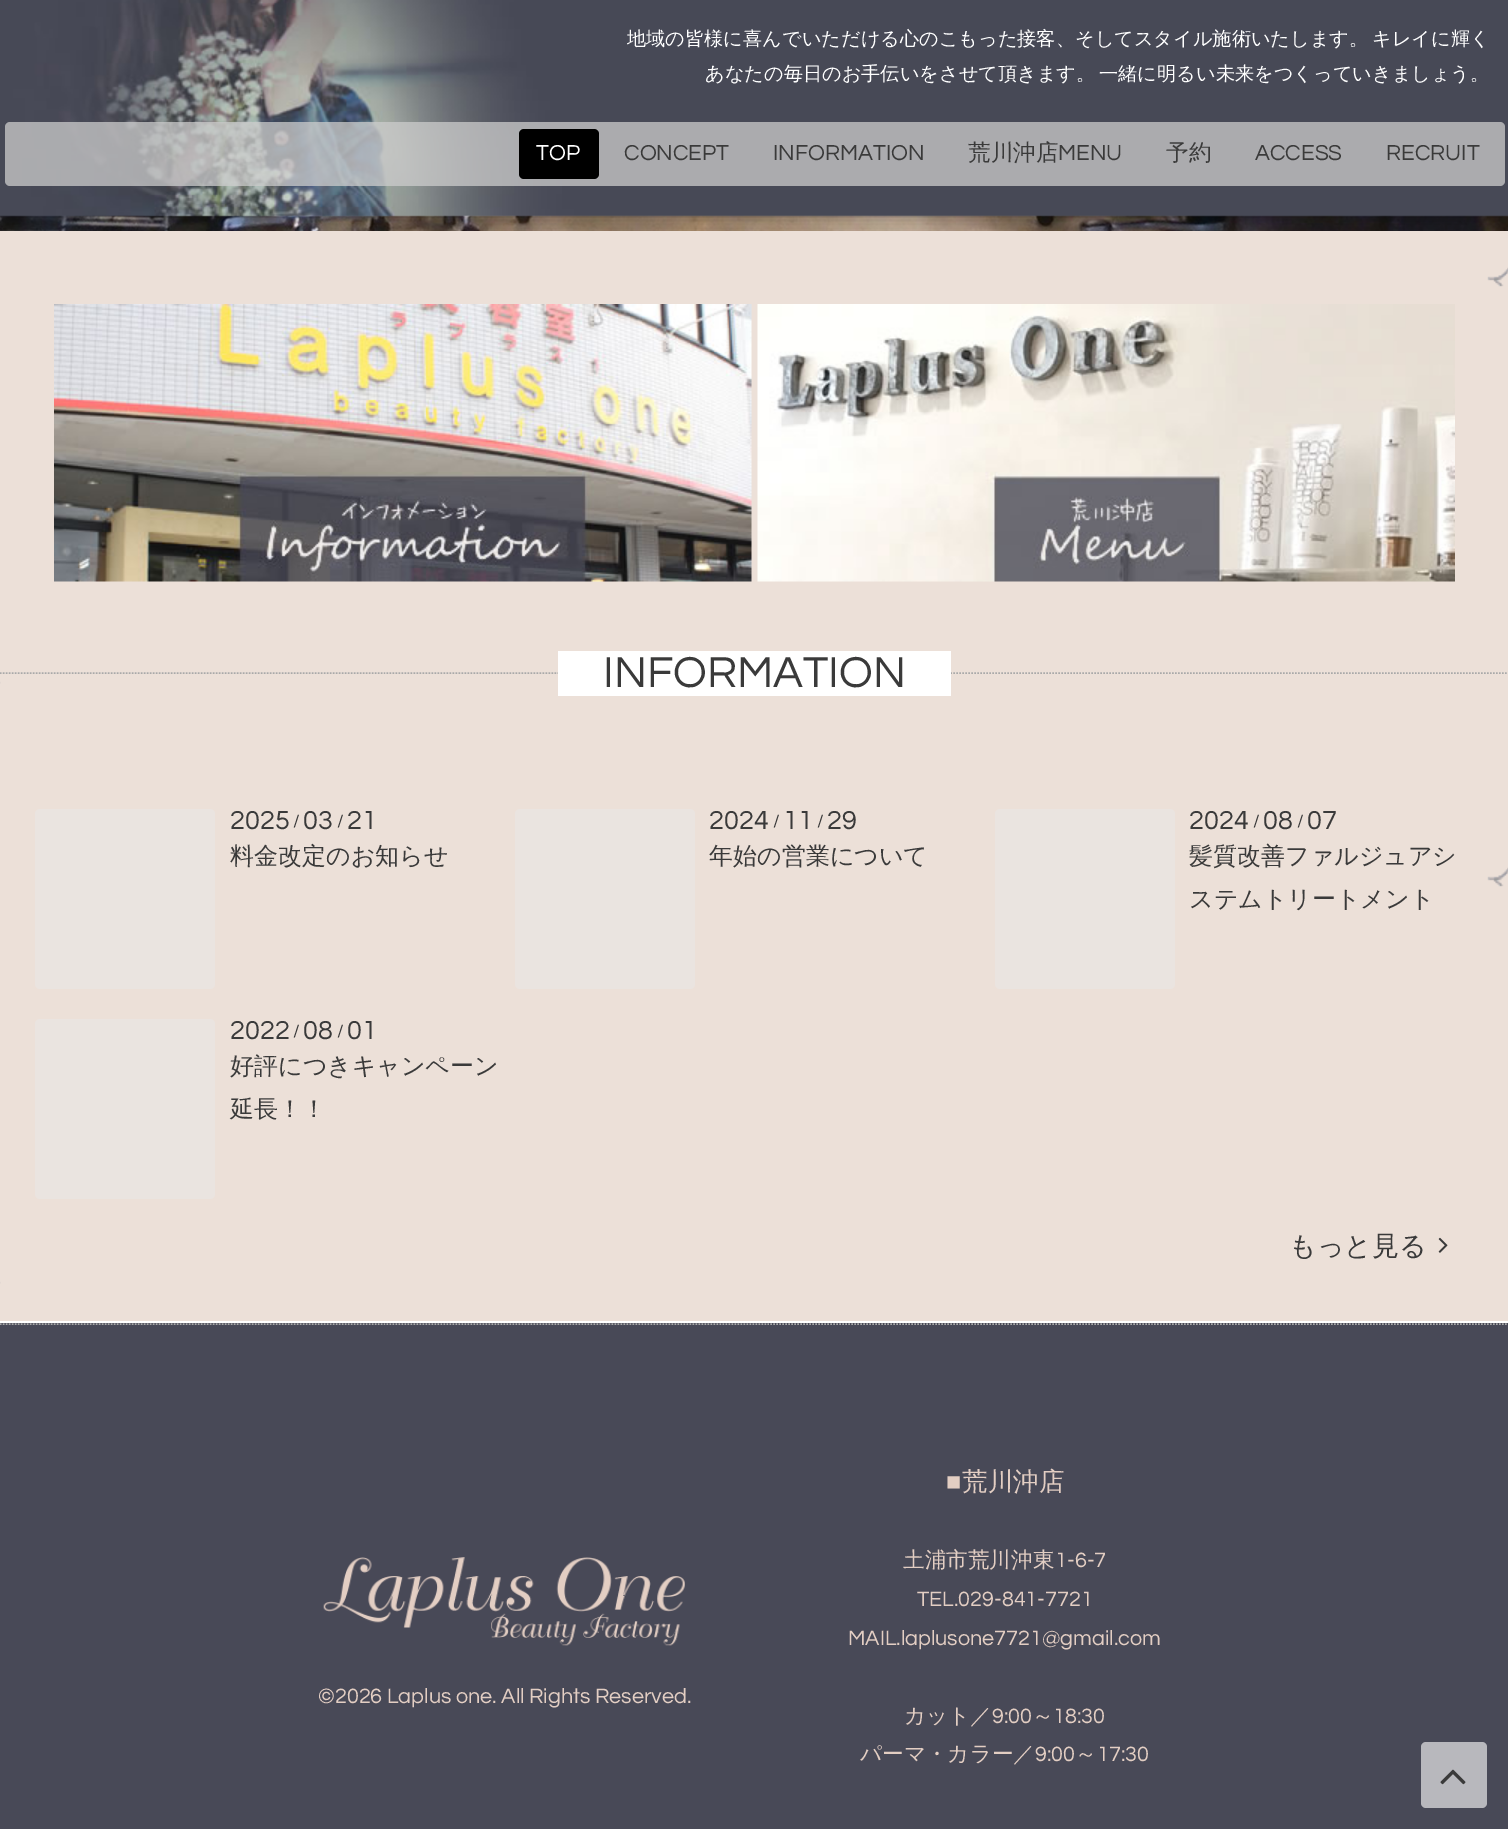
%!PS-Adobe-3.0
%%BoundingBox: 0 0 1508 1829
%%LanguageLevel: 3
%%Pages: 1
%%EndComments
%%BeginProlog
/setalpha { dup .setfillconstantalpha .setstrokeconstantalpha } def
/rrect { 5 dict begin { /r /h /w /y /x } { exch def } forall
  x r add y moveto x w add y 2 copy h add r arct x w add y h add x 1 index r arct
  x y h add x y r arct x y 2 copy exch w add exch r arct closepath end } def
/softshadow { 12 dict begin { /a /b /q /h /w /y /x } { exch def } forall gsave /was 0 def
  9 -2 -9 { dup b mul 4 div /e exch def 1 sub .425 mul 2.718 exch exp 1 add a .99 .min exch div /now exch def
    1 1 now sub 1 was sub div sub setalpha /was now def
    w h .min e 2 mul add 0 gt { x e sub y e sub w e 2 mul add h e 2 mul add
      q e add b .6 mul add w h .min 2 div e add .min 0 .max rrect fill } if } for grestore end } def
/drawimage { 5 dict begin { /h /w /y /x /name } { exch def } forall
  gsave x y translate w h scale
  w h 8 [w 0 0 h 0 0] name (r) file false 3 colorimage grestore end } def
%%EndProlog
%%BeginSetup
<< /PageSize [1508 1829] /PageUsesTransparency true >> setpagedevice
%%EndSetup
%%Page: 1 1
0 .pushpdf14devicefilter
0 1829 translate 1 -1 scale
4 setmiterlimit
1 setgray
0 0 1508 1829 rectfill
(images/2.raw) 0 231 1508 1090 drawimage
(images/3.raw) 0 215 1508 16 drawimage
0 setgray
6 8 1497 204 0 7.5 0.6 softshadow
(images/1.raw) 0 0 1508 217 drawimage
0.75 setalpha
0.8 setgray
5 122 1500 64 5 rrect fill
1 setalpha
0 setgray
519 129 80 50 5 rrect fill
(images/4.raw) 54 304 698 278 drawimage
(images/5.raw) 757 304 698 278 drawimage
0.663 setgray
1.5 setlinewidth
[1.5 1.5] 0 setdash
newpath 0 673 moveto 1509 673 lineto stroke
1 setgray
558 651 393 45 rectfill
0.918 0.894 0.878 setrgbcolor
35 809 180 180 5 rrect fill
515 809 180 180 5 rrect fill
995 809 180 180 5 rrect fill
35 1019 180 180 5 rrect fill
(images/6.raw) 1438 1237 10 16 drawimage
0.282 0.286 0.341 setrgbcolor
0 1323 1508 506 rectfill
0.663 setgray
newpath 0 1324 moveto 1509 1324 lineto stroke
(images/7.raw) 323 1557 362 89 drawimage
0.722 0.722 0.741 setrgbcolor
1421 1742 66 66 5 rrect fill
(images/8.raw) 1440 1769 26 16 drawimage
/WenQuanYiZenHei-Medium [19.2 0 0 -19.2 0 0] selectfont
1 setgray
627 45 moveto -2 0 32 (地域の皆様に喜んでいただける心のこもった接客、そしてスタイル施術いたします。 キレイに輝く) widthshow
705 80 moveto -2 0 32 (あなたの毎日のお手伝いをさせて頂きます。 一緒に明るい未来をつくっていきましょう。) widthshow
/Questrial-Regular [22.5 0 0 -22.5 0 0] selectfont
536 160 moveto (TOP) show
0.227 setgray
624 160 moveto (CONCEPT) show
773 160 moveto (INFORMATION) show
/WenQuanYiZenHei-Medium [22.5 0 0 -22.5 0 0] selectfont
968 160 moveto (荒川沖店) show
/Questrial-Regular [22.5 0 0 -22.5 0 0] selectfont
1058 160 moveto (MENU) show
/WenQuanYiZenHei-Medium [22.5 0 0 -22.5 0 0] selectfont
1166 160 moveto (予約) show
/Questrial-Regular [22.5 0 0 -22.5 0 0] selectfont
1255 160 moveto (ACCESS) show
1386 160 moveto (RECRUIT) show
/Questrial-Regular [45 0 0 -45 0 0] selectfont
603 687 moveto (INFORMATION) show
/Questrial-Regular [27 0 0 -27 0 0] selectfont
230 829 moveto (2025) show
/Questrial-Regular [18 0 0 -18 0 0] selectfont
293 827 moveto (/) show
/Questrial-Regular [27 0 0 -27 0 0] selectfont
303 829 moveto (03) show
/Questrial-Regular [18 0 0 -18 0 0] selectfont
337 827 moveto (/) show
/Questrial-Regular [27 0 0 -27 0 0] selectfont
347 829 moveto (21) show
/WenQuanYiZenHei-Medium [24 0 0 -24 0 0] selectfont
230 864 moveto (料金改定のお知らせ) show
/Questrial-Regular [27 0 0 -27 0 0] selectfont
709 829 moveto (2024) show
/Questrial-Regular [18 0 0 -18 0 0] selectfont
773 827 moveto (/) show
/Questrial-Regular [27 0 0 -27 0 0] selectfont
783 829 moveto (11) show
/Questrial-Regular [18 0 0 -18 0 0] selectfont
817 827 moveto (/) show
/Questrial-Regular [27 0 0 -27 0 0] selectfont
827 829 moveto (29) show
/WenQuanYiZenHei-Medium [24 0 0 -24 0 0] selectfont
709 864 moveto (年始の営業について) show
/Questrial-Regular [27 0 0 -27 0 0] selectfont
1189 829 moveto (2024) show
/Questrial-Regular [18 0 0 -18 0 0] selectfont
1253 827 moveto (/) show
/Questrial-Regular [27 0 0 -27 0 0] selectfont
1263 829 moveto (08) show
/Questrial-Regular [18 0 0 -18 0 0] selectfont
1297 827 moveto (/) show
/Questrial-Regular [27 0 0 -27 0 0] selectfont
1307 829 moveto (07) show
/WenQuanYiZenHei-Medium [24 0 0 -24 0 0] selectfont
1189 864 moveto (髪質改善ファルジュアシ) show
1189 907 moveto (ステムトリートメント) show
/Questrial-Regular [27 0 0 -27 0 0] selectfont
230 1039 moveto (2022) show
/Questrial-Regular [18 0 0 -18 0 0] selectfont
293 1037 moveto (/) show
/Questrial-Regular [27 0 0 -27 0 0] selectfont
303 1039 moveto (08) show
/Questrial-Regular [18 0 0 -18 0 0] selectfont
337 1037 moveto (/) show
/Questrial-Regular [27 0 0 -27 0 0] selectfont
347 1039 moveto (01) show
/WenQuanYiZenHei-Medium [24 0 0 -24 0 0] selectfont
230 1074 moveto (好評につきキャンペーン) show
230 1117 moveto (延長！！) show
/WenQuanYiZenHei-Medium [27 0 0 -27 0 0] selectfont
1289 1255 moveto (もっと見る) show
/Questrial-Regular [21.6 0 0 -21.6 0 0] selectfont
0.89 0.808 0.765 setrgbcolor
318 1703 moveto (©2026 Laplus one. All Rights Reserved.) show
/LiberationSans-Regular [25.5 0 0 -25.5 0 0] selectfont
946 1490 moveto (■) show
/WenQuanYiZenHei-Medium [25.5 0 0 -25.5 0 0] selectfont
962 1490 moveto (荒川沖店) show
/WenQuanYiZenHei-Medium [21.6 0 0 -21.6 0 0] selectfont
903 1567 moveto (土浦市荒川沖東) show
/Questrial-Regular [21.6 0 0 -21.6 0 0] selectfont
1055 1567 moveto (1-6-7) show
917 1606 moveto (TEL.029-841-7721) show
848 1645 moveto (MAIL.laplusone7721@gmail.com) show
/WenQuanYiZenHei-Medium [21.6 0 0 -21.6 0 0] selectfont
904 1723 moveto (カット／) show
/Questrial-Regular [21.6 0 0 -21.6 0 0] selectfont
992 1723 moveto (9:00) show
/WenQuanYiZenHei-Medium [21.6 0 0 -21.6 0 0] selectfont
1032 1723 moveto (～) show
/Questrial-Regular [21.6 0 0 -21.6 0 0] selectfont
1053 1723 moveto (18:30) show
/WenQuanYiZenHei-Medium [21.6 0 0 -21.6 0 0] selectfont
860 1761 moveto (パーマ・カラー／) show
/Questrial-Regular [21.6 0 0 -21.6 0 0] selectfont
1035 1761 moveto (9:00) show
/WenQuanYiZenHei-Medium [21.6 0 0 -21.6 0 0] selectfont
1075 1761 moveto (～) show
/Questrial-Regular [21.6 0 0 -21.6 0 0] selectfont
1097 1761 moveto (17:30) show
.poppdf14devicefilter showpage
%%EOF
